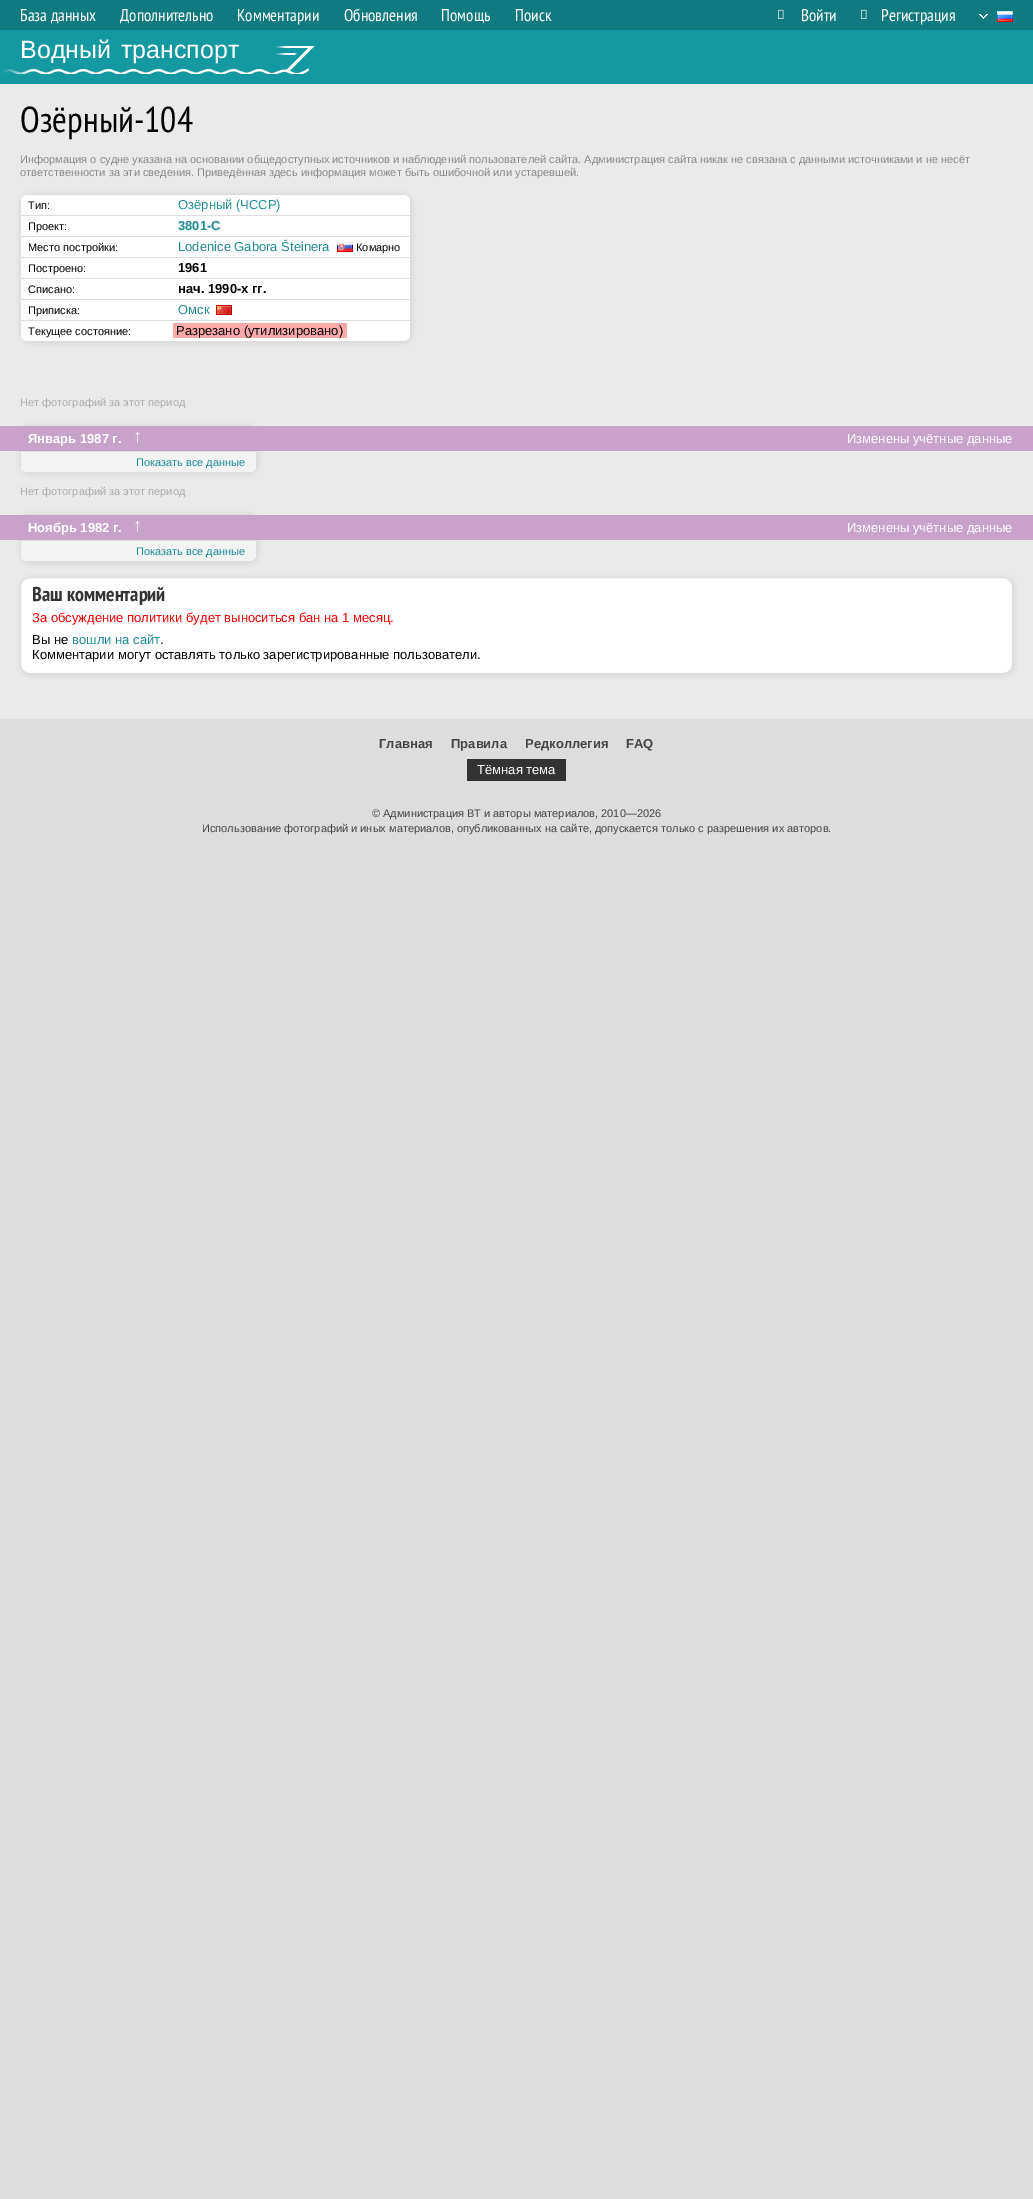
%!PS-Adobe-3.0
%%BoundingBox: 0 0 1033 2199
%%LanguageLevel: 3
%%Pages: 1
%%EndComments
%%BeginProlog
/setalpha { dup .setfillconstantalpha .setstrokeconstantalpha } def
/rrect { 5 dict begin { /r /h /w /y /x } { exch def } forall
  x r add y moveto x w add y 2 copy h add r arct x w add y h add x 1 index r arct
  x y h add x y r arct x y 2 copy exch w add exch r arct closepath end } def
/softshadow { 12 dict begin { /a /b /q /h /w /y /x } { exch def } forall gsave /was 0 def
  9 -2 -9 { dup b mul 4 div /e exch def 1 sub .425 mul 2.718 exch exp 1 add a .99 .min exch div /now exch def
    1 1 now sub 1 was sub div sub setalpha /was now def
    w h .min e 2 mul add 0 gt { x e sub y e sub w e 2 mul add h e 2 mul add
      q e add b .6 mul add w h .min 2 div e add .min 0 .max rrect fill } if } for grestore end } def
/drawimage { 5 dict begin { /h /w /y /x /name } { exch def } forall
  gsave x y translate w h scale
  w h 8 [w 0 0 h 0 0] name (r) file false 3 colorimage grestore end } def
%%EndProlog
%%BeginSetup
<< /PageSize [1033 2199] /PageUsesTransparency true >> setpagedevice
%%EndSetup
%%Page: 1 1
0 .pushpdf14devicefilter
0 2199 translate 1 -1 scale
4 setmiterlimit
0.867 setgray
0 0 1033 2199 rectfill
0.063 0.478 0.506 setrgbcolor
0 0 1033 30 rectfill
(images/1.raw) 778 9 6 10 drawimage
(images/1.raw) 861 9 6 10 drawimage
(images/2.raw) 979 14 9 5 drawimage
(images/3.raw) 997 11 16 11 drawimage
0.078 0.596 0.631 setrgbcolor
0 30 1033 54 rectfill
(images/4.raw) 1 46 314 28 drawimage
0.918 setgray
0 84 1033 635 rectfill
0.667 setgray
20 194 393 150 11 2.5 0.27 softshadow
1 setgray
20 194 391 148 10 rrect fill
gsave
20 194 391 148 10 rrect clip newpath
0.867 setgray
20 194 391 1 rectfill
410 194 1 148 rectfill
20 194 1 148 rectfill
grestore
0.867 setgray
20 215 391 1 rectfill
20 236 391 1 rectfill
20 257 391 1 rectfill
(images/5.raw) 337 242 16 10 drawimage
20 278 391 1 rectfill
20 299 391 1 rectfill
20 320 391 1 rectfill
(images/6.raw) 216 305 16 10 drawimage
gsave
20 194 391 148 10 rrect clip newpath
170 341 241 1 rectfill
20 341 151 1 rectfill
grestore
1 0.667 0.667 setrgbcolor
173 323 174 15 rectfill
0.667 setgray
20 425 239 50 11 2.5 0.27 softshadow
gsave
20 425 237 48 10 rrect clip newpath
0.867 setgray
20 452 1 21 rectfill
20 425 237 1 rectfill
grestore
0.784 0.635 0.784 setrgbcolor
0 426 1033 25 rectfill
0.867 setgray
20 451 237 1 rectfill
gsave
20 425 237 48 10 rrect clip newpath
0.953 setgray
21 452 235 21 rectfill
0.867 setgray
128 472 129 1 rectfill
20 472 109 1 rectfill
grestore
0.667 setgray
20 514 239 50 11 2.5 0.27 softshadow
1 setgray
20 514 237 48 10 rrect fill
gsave
20 514 237 48 10 rrect clip newpath
0.953 setgray
newpath 21 541 moveto 257 541 lineto 257 552 lineto 257 557.5 252.5 562 247 562 curveto 21 562 lineto closepath fill
0.867 setgray
256 541 1 21 rectfill
20 541 1 21 rectfill
20 514 237 1 rectfill
grestore
0.784 0.635 0.784 setrgbcolor
0 515 1033 25 rectfill
0.867 setgray
20 540 237 1 rectfill
gsave
20 514 237 48 10 rrect clip newpath
129 561 128 1 rectfill
20 561 110 1 rectfill
grestore
0.667 setgray
20 577 995 99 11 2.5 0.27 softshadow
1 setgray
20.5 577.5 992 96 9.5 rrect gsave fill grestore
0.867 setgray
stroke
0.2 setgray
467 759 99 22 rectfill
/PTSansNarrow-Regular [17 0 0 -17 0 0] selectfont
1 setgray
20 21 moveto (База данных) show
120 21 moveto (Дополнительно) show
237 21 moveto (Комментарии) show
344 21 moveto (Обновления) show
441 21 moveto (Помощь) show
515 21 moveto (Поиск) show
801 21 moveto (Войти) show
881 21 moveto (Регистрация) show
/LiberationSans-Regular [25 0 0 -25 0 0] selectfont
20 58 moveto 3 0 32 (Водный транспорт) widthshow
/PTSansNarrow-Regular [36 0 0 -36 0 0] selectfont
0 setgray
20 132 moveto (Озёрный-104) show
/LiberationSans-Regular [11 0 0 -11 0 0] selectfont
0.533 setgray
20 163 moveto (Информация о судне указана на основании общедоступных источников и наблюдений пользователей сайта. Администрация сайта никак не связана с данными источниками и не несёт) show
20 176 moveto (ответственности за эти сведения. Приведённая здесь информация может быть ошибочной или устаревшей.) show
0 setgray
28 209 moveto (Тип:) show
/LiberationSans-Regular [13 0 0 -13 0 0] selectfont
0.118 0.545 0.573 setrgbcolor
178 209 moveto (Озёрный \(ЧССР\)) show
/LiberationSans-Regular [11 0 0 -11 0 0] selectfont
0 setgray
28 230 moveto (Проект:) show
/LiberationSans-Bold [13 0 0 -13 0 0] selectfont
0.118 0.545 0.573 setrgbcolor
178 230 moveto (3801-С) show
/LiberationSans-Regular [11 0 0 -11 0 0] selectfont
0 setgray
28 251 moveto (Место постройки:) show
/LiberationSans-Regular [13 0 0 -13 0 0] selectfont
0.118 0.545 0.573 setrgbcolor
178 251 moveto (Lodenice Gabora Šteinera) show
/LiberationSans-Regular [11 0 0 -11 0 0] selectfont
0 setgray
356 251 moveto (Комарно) show
28 272 moveto (Построено:) show
/LiberationSans-Bold [13 0 0 -13 0 0] selectfont
178 272 moveto (1961) show
/LiberationSans-Regular [11 0 0 -11 0 0] selectfont
28 293 moveto (Списано:) show
/LiberationSans-Bold [13 0 0 -13 0 0] selectfont
178 293 moveto (нач. 1990-х гг.) show
/LiberationSans-Regular [11 0 0 -11 0 0] selectfont
28 314 moveto (Приписка:) show
/LiberationSans-Regular [13 0 0 -13 0 0] selectfont
0.118 0.545 0.573 setrgbcolor
178 314 moveto (Омск) show
/LiberationSans-Regular [11 0 0 -11 0 0] selectfont
0 setgray
28 335 moveto (Текущее состояние:) show
/LiberationSans-Regular [13 0 0 -13 0 0] selectfont
176 335 moveto (Разрезано \(утилизировано\)) show
/LiberationSans-Regular [11 0 0 -11 0 0] selectfont
0.667 setgray
20 406 moveto (Нет фотографий за этот период) show
/LiberationSans-Regular [18 0 0 -18 0 0] selectfont
1 setgray
133 442 moveto (↑) show
/LiberationSans-Bold [13 0 0 -13 0 0] selectfont
28 443 moveto (Январь 1987 г.) show
/LiberationSans-Regular [13 0 0 -13 0 0] selectfont
847 443 moveto (Изменены учётные данные) show
/LiberationSans-Regular [11 0 0 -11 0 0] selectfont
0.118 0.545 0.573 setrgbcolor
136 466 moveto (Показать все данные) show
0.667 setgray
20 495 moveto (Нет фотографий за этот период) show
/LiberationSans-Regular [18 0 0 -18 0 0] selectfont
1 setgray
133 531 moveto (↑) show
/LiberationSans-Bold [13 0 0 -13 0 0] selectfont
28 532 moveto (Ноябрь 1982 г.) show
/LiberationSans-Regular [13 0 0 -13 0 0] selectfont
847 532 moveto (Изменены учётные данные) show
/LiberationSans-Regular [11 0 0 -11 0 0] selectfont
0.118 0.545 0.573 setrgbcolor
136 555 moveto (Показать все данные) show
/PTSansNarrow-Bold [20 0 0 -20 0 0] selectfont
0.2 setgray
32 601 moveto (Ваш комментарий) show
/LiberationSans-Regular [13 0 0 -13 0 0] selectfont
0.933 0 0 setrgbcolor
32 622 moveto (За обсуждение политики будет выноситься бан на 1 месяц.) show
0 setgray
32 644 moveto (Вы не) show
0.118 0.545 0.573 setrgbcolor
72 644 moveto (вошли на сайт) show
0 setgray
160 644 moveto (.) show
32 659 moveto (Комментарии могут оставлять только зарегистрированные пользователи.) show
/LiberationSans-Bold [13 0 0 -13 0 0] selectfont
0.267 setgray
379 748 moveto (Главная) show
451 748 moveto (Правила) show
525 748 moveto (Редколлегия) show
626 748 moveto (FAQ) show
/LiberationSans-Regular [13 0 0 -13 0 0] selectfont
1 setgray
477 774 moveto (Тёмная тема) show
/LiberationSans-Regular [11 0 0 -11 0 0] selectfont
0.267 setgray
372 817 moveto (© Администрация ВТ и авторы материалов, 2010—2026) show
202 832 moveto (Использование фотографий и иных материалов, опубликованных на сайте, допускается только с разрешения их авторов.) show
.poppdf14devicefilter showpage
%%EOF
